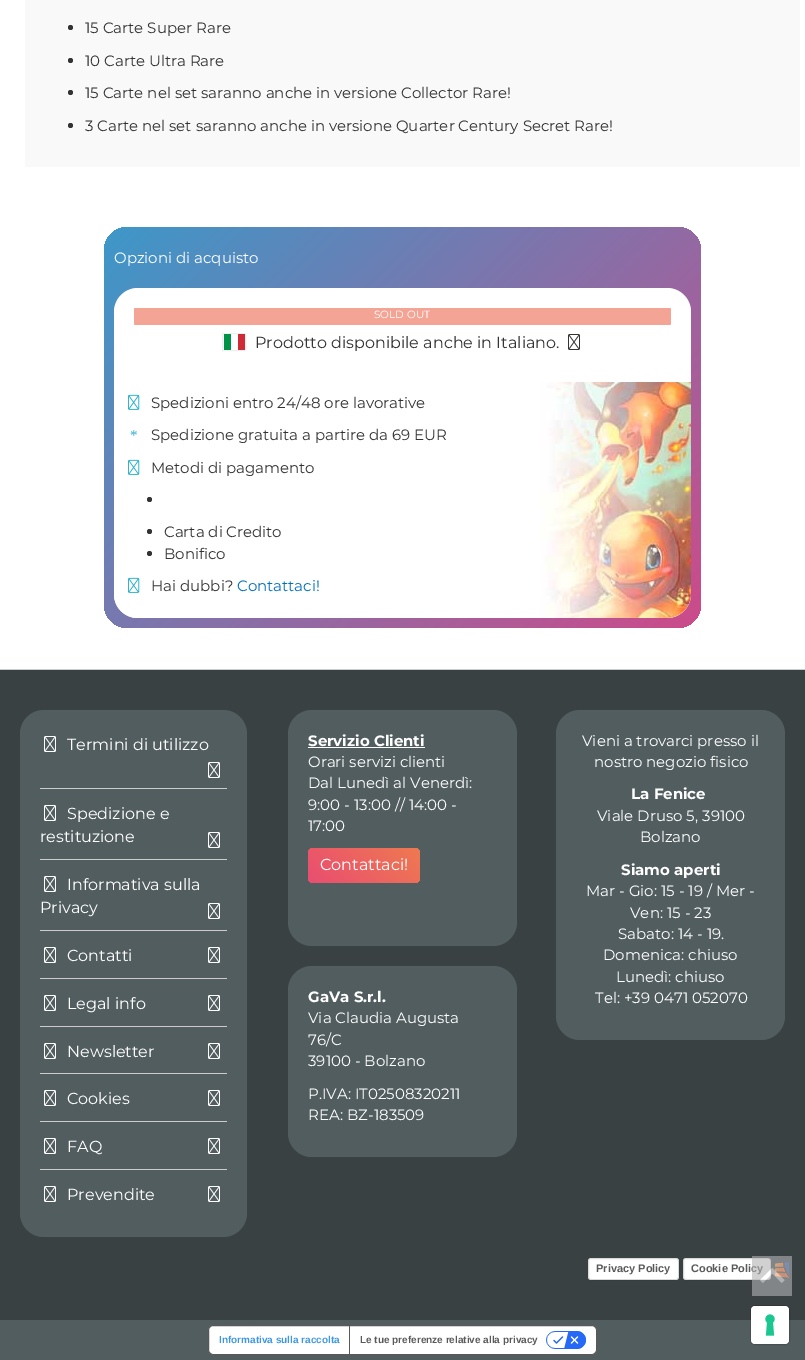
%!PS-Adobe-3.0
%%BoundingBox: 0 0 805 1360
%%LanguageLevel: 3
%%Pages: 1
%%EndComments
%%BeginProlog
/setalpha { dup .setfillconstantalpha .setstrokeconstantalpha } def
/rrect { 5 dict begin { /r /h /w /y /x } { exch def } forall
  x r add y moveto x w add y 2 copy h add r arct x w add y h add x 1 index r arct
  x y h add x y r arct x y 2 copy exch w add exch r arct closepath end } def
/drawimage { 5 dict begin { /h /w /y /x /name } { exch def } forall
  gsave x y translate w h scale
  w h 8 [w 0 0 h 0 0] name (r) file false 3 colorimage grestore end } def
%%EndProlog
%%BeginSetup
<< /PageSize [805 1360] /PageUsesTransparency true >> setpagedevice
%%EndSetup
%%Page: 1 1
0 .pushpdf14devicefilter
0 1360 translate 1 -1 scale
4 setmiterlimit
0.322 0.365 0.376 setrgbcolor
0 0 805 1360 rectfill
1 setgray
0 0 805 669 rectfill
0.976 setgray
25 0 775 167 rectfill
0.2 setgray
newpath 70.5 27.5 2.5 0 360 arc closepath fill
newpath 70.5 60.5 2.5 0 360 arc closepath fill
newpath 70.5 92.5 2.5 0 360 arc closepath fill
newpath 70.5 125.5 2.5 0 360 arc closepath fill
gsave 104 227 597 401 24 rrect clip newpath
<< /ShadingType 2 /ColorSpace /DeviceRGB /Coords [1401 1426 -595 -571] /Extend [true true] /Function << /FunctionType 3 /Domain [0 1] /Functions [<< /FunctionType 2 /Domain [0 1] /C0 [0.933 0.467 0.322] /C1 [0.906 0.235 0.494] /N 1 >> << /FunctionType 2 /Domain [0 1] /C0 [0.906 0.235 0.494] /C1 [0.137 0.651 0.835] /N 1 >> << /FunctionType 2 /Domain [0 1] /C0 [0.137 0.651 0.835] /C1 [0.137 0.835 0.671] /N 1 >>] /Bounds [0.33 0.67] /Encode [0 1 0 1 0 1] >> >> shfill grestore
1 setgray
114 288 577 330 24 rrect fill
0.953 0.643 0.584 setrgbcolor
134 308 537 17 1.5 rrect fill
0.941 setgray
222.5 333.5 23 17 rectstroke
0 0.573 0.275 setrgbcolor
224 334 7 16 rectfill
0.808 0.169 0.216 setrgbcolor
238 334 7 16 rectfill
(images/1.raw) 568 334 12 16 drawimage
1 setgray
newpath 114 382 moveto 691 382 lineto 691 594 lineto 691 607.5 680.5 618 667 618 curveto 138 618 lineto 124.5 618 114 607.5 114 594 curveto closepath fill
(images/2.raw) 540 382 151 236 drawimage
(images/3.raw) 128 394 12 16 drawimage
(images/3.raw) 128 459 12 16 drawimage
0.2 setgray
newpath 149.5 499.5 2.5 0 360 arc closepath fill
newpath 149.5 531.5 2.5 0 360 arc closepath fill
newpath 149.5 553.5 2.5 0 360 arc closepath fill
(images/3.raw) 128 577 12 16 drawimage
0.224 0.255 0.263 setrgbcolor
0 670 805 650 rectfill
0.8 setgray
0 669 805 1 rectfill
0.322 0.365 0.376 setrgbcolor
20 710 227 527 24 rrect fill
0.8 setgray
40 788 187 1 rectfill
(images/4.raw) 44 736 12 16 drawimage
(images/4.raw) 208 762 12 16 drawimage
40 859 187 1 rectfill
(images/4.raw) 44 805 12 16 drawimage
(images/4.raw) 208 832 12 16 drawimage
40 930 187 1 rectfill
(images/4.raw) 44 876 12 16 drawimage
(images/4.raw) 208 903 12 16 drawimage
40 978 187 1 rectfill
(images/4.raw) 44 947 12 16 drawimage
(images/4.raw) 208 947 12 16 drawimage
40 1026 187 1 rectfill
(images/4.raw) 44 995 12 16 drawimage
(images/4.raw) 208 995 12 16 drawimage
40 1073 187 1 rectfill
(images/4.raw) 44 1043 12 16 drawimage
(images/4.raw) 208 1043 12 16 drawimage
40 1121 187 1 rectfill
(images/4.raw) 44 1090 12 16 drawimage
(images/4.raw) 208 1090 12 16 drawimage
40 1169 187 1 rectfill
(images/4.raw) 44 1138 12 16 drawimage
(images/4.raw) 208 1138 12 16 drawimage
(images/4.raw) 44 1186 12 16 drawimage
(images/4.raw) 208 1186 12 16 drawimage
0.322 0.365 0.376 setrgbcolor
288 710 229 236 24 rrect fill
1 setgray
308 747 117 1 rectfill
gsave 308 848 112 35 6 rrect clip newpath
<< /ShadingType 2 /ColorSpace /DeviceRGB /Coords [382 1013 676 719] /Extend [true true] /Function << /FunctionType 3 /Domain [0 1] /Functions [<< /FunctionType 2 /Domain [0 1] /C0 [0.906 0.235 0.494] /C1 [0.933 0.467 0.322] /N 1 >> << /FunctionType 2 /Domain [0 1] /C0 [0.933 0.467 0.322] /C1 [0.137 0.651 0.835] /N 1 >> << /FunctionType 2 /Domain [0 1] /C0 [0.137 0.651 0.835] /C1 [0.137 0.835 0.671] /N 1 >>] /Bounds [0.33 0.67] /Encode [0 1 0 1 0 1] >> >> shfill grestore
0.322 0.365 0.376 setrgbcolor
288 966 229 191 24 rrect fill
556 710 229 330 24 rrect fill
1 setgray
588 1258 91 22 3 rrect fill
0.15 setalpha
0 setgray
588.5 1258.5 90 21 2.5 rrect stroke
1 setalpha
1 setgray
683 1258 88 22 3 rrect fill
0.15 setalpha
0 setgray
683.5 1258.5 87 21 2.5 rrect stroke
1 setalpha
(images/5.raw) 775 1262 15 16 drawimage
1 setgray
208.5 1325.5 388 29 4.5 rrect gsave fill grestore
0.349 setgray
stroke
349 1326 1 28 rectfill
(images/7.raw) 546 1331 40 18 drawimage
0.15 setalpha
0 setgray
750.5 1305.5 39 39 4.5 rrect stroke
1 setalpha
1 setgray
751 1306 38 38 4 rrect fill
(images/8.raw) 765 1314 10 22 drawimage
/Montserrat-Regular [15 0 0 -15 0 0] selectfont
0.2 setgray
85 33 moveto (15 Carte Super Rare) show
85 66 moveto (10 Carte Ultra Rare) show
85 98 moveto (15 Carte nel set saranno anche in versione Collector Rare!) show
85 131 moveto (3 Carte nel set saranno anche in versione Quarter Century Secret Rare!) show
1 setgray
114 263 moveto (Opzioni di acquisto) show
/Montserrat-Regular [10.5 0 0 -10.5 0 0] selectfont
374 318 moveto (SOLD OUT) show
/Montserrat-Regular [16 0 0 -16 0 0] selectfont
0.2 setgray
255 348 moveto (Prodotto disponibile anche in Italiano.) show
/Montserrat-Regular [15 0 0 -15 0 0] selectfont
151 408 moveto (Spedizioni entro 24/48 ore lavorative) show
/LiberationSerif-Regular [15 0 0 -15 0 0] selectfont
0.137 0.69 0.796 setrgbcolor
130 440 moveto (*) show
/Montserrat-Regular [15 0 0 -15 0 0] selectfont
0.2 setgray
151 440 moveto (Spedizione gratuita a partire da 69 EUR) show
151 473 moveto (Metodi di pagamento) show
164 537 moveto (Carta di Credito) show
164 559 moveto (Bonifico) show
151 591 moveto (Hai dubbi?) show
0 0.439 0.729 setrgbcolor
237 591 moveto (Contattaci!) show
/Montserrat-Regular [16 0 0 -16 0 0] selectfont
1 setgray
67 750 moveto (Termini di utilizzo) show
67 819 moveto (Spedizione e) show
40 842 moveto (restituzione) show
67 890 moveto (Informativa sulla) show
40 913 moveto (Privacy) show
67 961 moveto (Contatti) show
67 1009 moveto (Legal info) show
67 1057 moveto (Newsletter) show
67 1104 moveto (Cookies) show
67 1152 moveto (FAQ) show
67 1200 moveto (Prevendite) show
/Montserrat-Bold [15 0 0 -15 0 0] selectfont
308 746 moveto (Servizio Clienti) show
/Montserrat-Regular [15 0 0 -15 0 0] selectfont
308 767 moveto (Orari servizi clienti) show
308 788 moveto (Dal Lunedì al Venerdì:) show
308 810 moveto (9:00 - 13:00 // 14:00 -) show
308 831 moveto (17:00) show
/Montserrat-Regular [16 0 0 -16 0 0] selectfont
320 870 moveto (Contattaci!) show
/Montserrat-Bold [15 0 0 -15 0 0] selectfont
308 1002 moveto (GaVa S.r.l.) show
/Montserrat-Regular [15 0 0 -15 0 0] selectfont
308 1023 moveto (Via Claudia Augusta) show
308 1045 moveto (76/C) show
308 1066 moveto (39100 - Bolzano) show
308 1099 moveto (P.IVA: IT02508320211) show
308 1120 moveto (REA: BZ-183509) show
582 746 moveto (Vieni a trovarci presso il) show
594 767 moveto (nostro negozio fisico) show
/Montserrat-Bold [15 0 0 -15 0 0] selectfont
631 799 moveto (La Fenice) show
/Montserrat-Regular [15 0 0 -15 0 0] selectfont
597 821 moveto (Viale Druso 5, 39100) show
640 842 moveto (Bolzano) show
/Montserrat-Bold [15 0 0 -15 0 0] selectfont
621 875 moveto (Siamo aperti) show
/Montserrat-Regular [15 0 0 -15 0 0] selectfont
586 896 moveto (Mar - Gio: 15 - 19 / Mer -) show
630 918 moveto (Ven: 15 - 23) show
618 939 moveto (Sabato: 14 - 19.) show
603 960 moveto (Domenica: chiuso) show
616 982 moveto (Lunedì: chiuso) show
595 1003 moveto (Tel: +39 0471 052070) show
/LiberationSans-Bold [11 0 0 -11 0 0] selectfont
0.349 setgray
596 1272 moveto (Privacy Policy) show
691 1272 moveto (Cookie Policy) show
(images/6.raw) 752 1256 40 40 drawimage
/LiberationSans-Bold [10 0 0 -10 0 0] selectfont
0.243 0.596 0.878 setrgbcolor
219 1343 moveto (Informativa sulla raccolta) show
0.349 setgray
360 1343 moveto (Le tue preferenze relative alla privacy) show
.poppdf14devicefilter showpage
%%EOF
